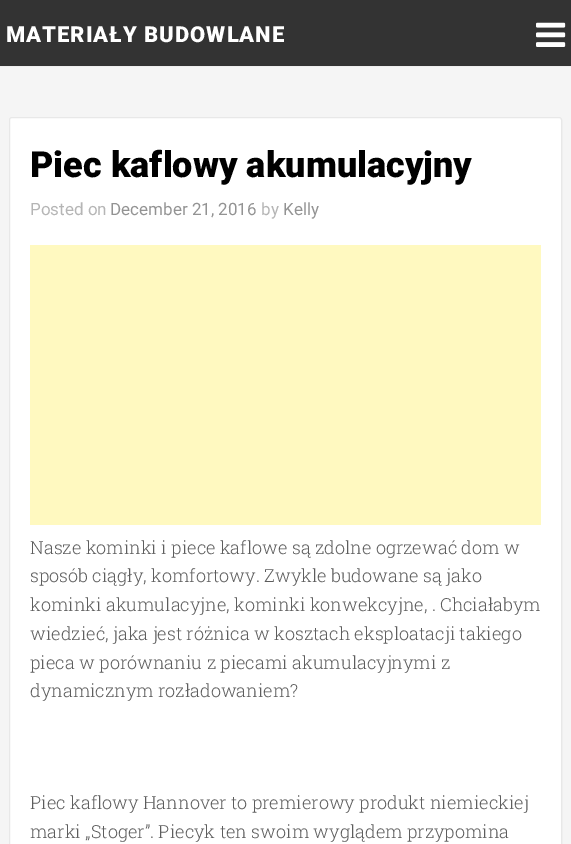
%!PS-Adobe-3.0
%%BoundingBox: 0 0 571 844
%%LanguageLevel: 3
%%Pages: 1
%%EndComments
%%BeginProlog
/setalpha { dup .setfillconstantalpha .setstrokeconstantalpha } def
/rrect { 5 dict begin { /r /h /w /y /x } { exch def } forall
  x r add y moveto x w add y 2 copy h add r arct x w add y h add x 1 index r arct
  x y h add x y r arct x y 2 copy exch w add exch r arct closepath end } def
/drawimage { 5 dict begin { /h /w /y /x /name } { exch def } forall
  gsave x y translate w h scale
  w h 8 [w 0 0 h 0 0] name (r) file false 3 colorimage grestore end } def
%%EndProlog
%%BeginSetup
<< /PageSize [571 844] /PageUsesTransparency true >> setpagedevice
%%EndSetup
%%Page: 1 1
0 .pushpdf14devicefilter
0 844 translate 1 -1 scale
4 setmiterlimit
0.961 setgray
0 0 571 844 rectfill
0.2 setgray
0 0 571 66 rectfill
0.933 setgray
0 66 571 1 rectfill
(images/1.raw) 536 22 30 25 drawimage
1 setgray
9 117 553 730 3 rrect fill
0.09 setalpha
0 setgray
9.5 117.5 552 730 2.5 rrect stroke
1 setalpha
1 0.976 0.753 setrgbcolor
30 245 511 280 rectfill
/Roboto-Black [22 0 0 -22 0 0] selectfont
1 setgray
6 42 moveto 1 0 (MATERIAŁY BUDOWLANE) ashow
/Roboto-Black [36 0 0 -36 0 0] selectfont
0 setgray
30 177 moveto (Piec kaflowy akumulacyjny) show
/Roboto-Regular [17 0 0 -17 0 0] selectfont
0.71 setgray
30 215 moveto (Posted on) show
0.576 setgray
110 215 moveto (December 21, 2016) show
0.71 setgray
261 215 moveto (by) show
0.576 setgray
283 215 moveto (Kelly) show
/RobotoSlab-Light [18 0 0 -18 0 0] selectfont
0.365 setgray
30 554 moveto (Nasze kominki i piece kaflowe są zdolne ogrzewać dom w) show
30 582 moveto (sposób ciągły, komfortowy. Zwykle budowane są jako) show
30 611 moveto (kominki akumulacyjne, kominki konwekcyjne, . Chciałabym) show
30 640 moveto (wiedzieć, jaka jest różnica w kosztach eksploatacji takiego) show
30 669 moveto (pieca w porównaniu z piecami akumulacyjnymi z) show
30 697 moveto (dynamicznym rozładowaniem?) show
30 809 moveto (Piec kaflowy Hannover to premierowy produkt niemieckiej) show
30 838 moveto (marki „Stoger”. Piecyk ten swoim wyglądem przypomina) show
.poppdf14devicefilter showpage
%%EOF
